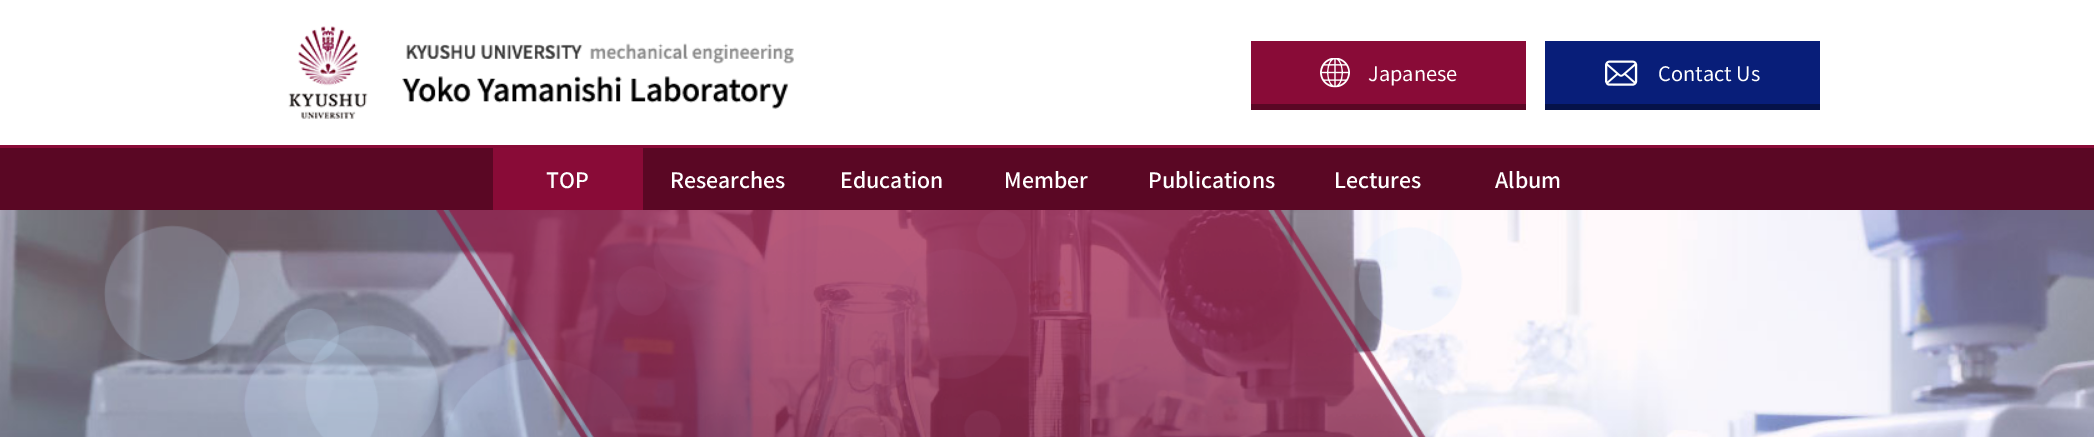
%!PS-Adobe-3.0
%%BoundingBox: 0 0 2094 437
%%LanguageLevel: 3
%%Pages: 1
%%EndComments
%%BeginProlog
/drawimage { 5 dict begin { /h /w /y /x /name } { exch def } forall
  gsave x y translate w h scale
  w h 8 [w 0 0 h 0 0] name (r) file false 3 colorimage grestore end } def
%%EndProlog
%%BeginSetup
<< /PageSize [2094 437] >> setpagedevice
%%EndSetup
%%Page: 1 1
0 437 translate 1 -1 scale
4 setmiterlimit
1 setgray
0 0 2094 437 rectfill
(images/1.raw) 288 26 506 93 drawimage
0.353 0.027 0.141 setrgbcolor
newpath 1251 48 moveto 1251 110 lineto 1526 110 lineto 1526 104 lineto 1251 104 lineto closepath fill
0.537 0.043 0.216 setrgbcolor
1251 41 275 63 rectfill
(images/2.raw) 1320 58 30 30 drawimage
0.02 0.071 0.286 setrgbcolor
1545 104 275 6 rectfill
0.031 0.118 0.475 setrgbcolor
1545 41 275 63 rectfill
(images/3.raw) 1605 60 33 26 drawimage
0.353 0.027 0.141 setrgbcolor
0 148 2094 62 rectfill
0.537 0.043 0.216 setrgbcolor
0 145 2094 3 rectfill
493 148 150 62 rectfill
(images/4.raw) 0 210 2094 227 drawimage
(images/5.raw) 104 210 1359 227 drawimage
(images/6.raw) 436 210 991 227 drawimage
/NotoSansJP-Regular [20 0 0 -20 0 0] selectfont
1 setgray
1368 81 moveto (Japanese) show
1658 81 moveto (Contact Us) show
/NotoSansJP-Medium [21.25 0 0 -21.25 0 0] selectfont
546 188 moveto (TOP) show
670 188 moveto (Researches) show
840 188 moveto (Education) show
1004 188 moveto (Member) show
1148 188 moveto (Publications) show
1334 188 moveto (Lectures) show
1495 188 moveto (Album) show
showpage
%%EOF
